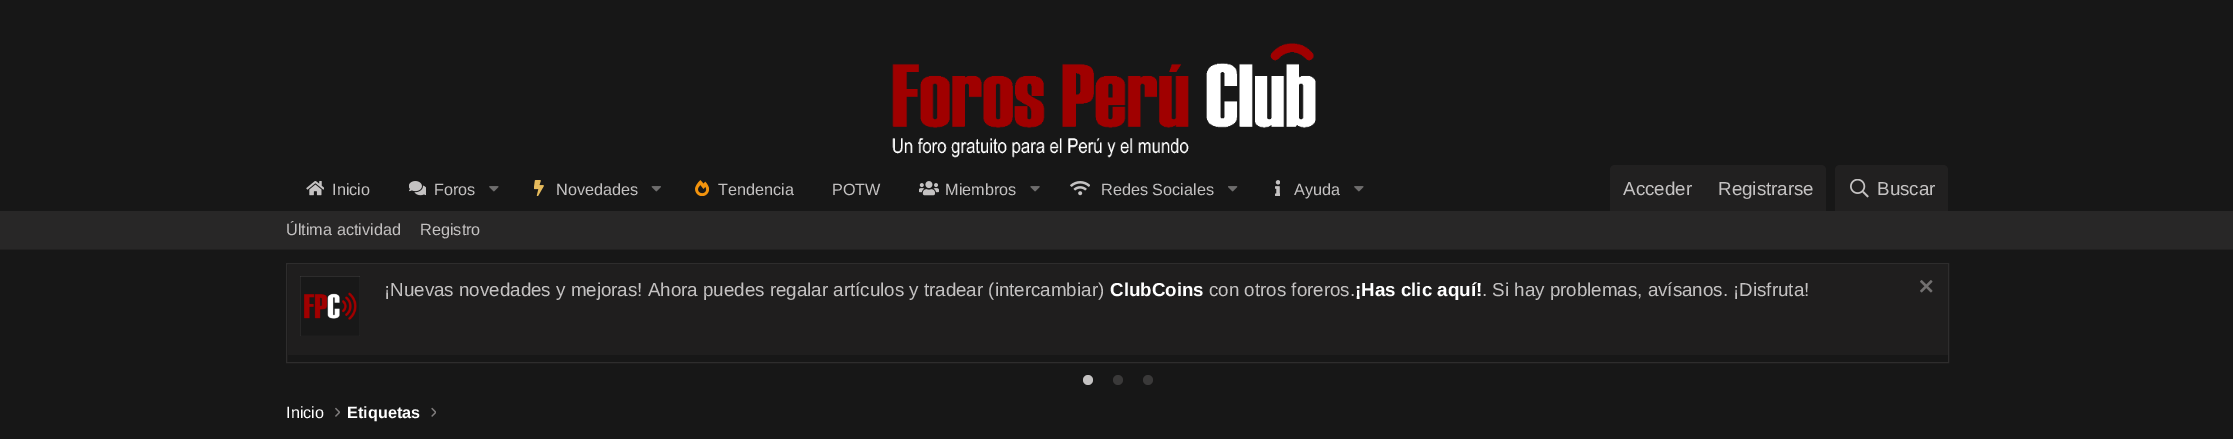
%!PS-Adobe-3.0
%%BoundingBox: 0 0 2233 439
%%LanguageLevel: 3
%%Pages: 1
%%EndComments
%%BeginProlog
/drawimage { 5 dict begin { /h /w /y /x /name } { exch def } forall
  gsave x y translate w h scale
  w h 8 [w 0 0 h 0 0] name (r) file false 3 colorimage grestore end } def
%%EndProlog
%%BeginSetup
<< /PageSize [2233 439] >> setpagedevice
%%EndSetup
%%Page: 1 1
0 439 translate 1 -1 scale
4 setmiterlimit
0.09 setgray
0 0 2233 439 rectfill
(images/1.raw) 892 43 424 115 drawimage
(images/2.raw) 306 181 18 15 drawimage
(images/3.raw) 409 181 17 15 drawimage
(images/4.raw) 489 186 10 6 drawimage
(images/5.raw) 534 180 10 16 drawimage
(images/6.raw) 651 186 10 6 drawimage
(images/7.raw) 695 180 14 16 drawimage
(images/8.raw) 919 181 20 15 drawimage
(images/9.raw) 1030 186 10 6 drawimage
(images/10.raw) 1070 181 20 15 drawimage
(images/11.raw) 1228 186 10 6 drawimage
(images/12.raw) 1275 180 5 16 drawimage
(images/4.raw) 1354 186 10 6 drawimage
0.129 0.125 0.125 setrgbcolor
newpath 1615 165 moveto 1821 165 lineto 1824 165 1826 167 1826 170 curveto 1826 211 lineto 1610 211 lineto 1610 170 lineto 1610 167 1612 165 1615 165 curveto closepath fill
newpath 1840 165 moveto 1943 165 lineto 1946 165 1948 167 1948 170 curveto 1948 211 lineto 1835 211 lineto 1835 170 lineto 1835 167 1837 165 1840 165 curveto closepath fill
(images/13.raw) 1850 179 19 19 drawimage
0.157 0.153 0.153 setrgbcolor
0 211 2233 38 rectfill
0.129 0.125 0.125 setrgbcolor
0 249 2233 1 rectfill
0.18 0.176 0.176 setrgbcolor
286.5 263.5 1662 99 rectstroke
0.122 0.118 0.118 setrgbcolor
288 264 1660 91 rectfill
(images/14.raw) 300 276 60 60 drawimage
(images/15.raw) 1920 280 13 13 drawimage
0.769 0.761 0.761 setrgbcolor
newpath 1088 380 5 0 360 arc closepath fill
0.227 0.224 0.224 setrgbcolor
newpath 1118 380 5 0 360 arc closepath fill
newpath 1148 380 5 0 360 arc closepath fill
(images/16.raw) 335 407 5 10 drawimage
(images/17.raw) 431 407 5 10 drawimage
/LiberationSans-Regular [16.25 0 0 -16.25 0 0] selectfont
0.769 0.761 0.761 setrgbcolor
332 195 moveto (Inicio) show
434 195 moveto (Foros) show
556 195 moveto (Novedades) show
718 195 moveto (Tendencia) show
832 195 moveto (POTW) show
945 195 moveto (Miembros) show
1101 195 moveto (Redes Sociales) show
1294 195 moveto (Ayuda) show
/LiberationSans-Regular [18.75 0 0 -18.75 0 0] selectfont
1623 195 moveto (Acceder) show
1718 195 moveto (Registrarse) show
1877 195 moveto (Buscar) show
/LiberationSans-Regular [16.25 0 0 -16.25 0 0] selectfont
286 235 moveto (Última actividad) show
420 235 moveto (Registro) show
/LiberationSans-Regular [18.75 0 0 -18.75 0 0] selectfont
384 296 moveto (¡Nuevas novedades y mejoras! Ahora puedes regalar artículos y tradear \(intercambiar\)) show
/LiberationSans-Bold [18.75 0 0 -18.75 0 0] selectfont
1 setgray
1110 296 moveto (ClubCoins) show
/LiberationSans-Regular [18.75 0 0 -18.75 0 0] selectfont
0.769 0.761 0.761 setrgbcolor
1209 296 moveto (con otros foreros.) show
/LiberationSans-Bold [18.75 0 0 -18.75 0 0] selectfont
1 setgray
1355 296 moveto (¡Has clic aquí!) show
/LiberationSans-Regular [18.75 0 0 -18.75 0 0] selectfont
0.769 0.761 0.761 setrgbcolor
1482 296 moveto (. Si hay problemas, avísanos. ¡Disfruta!) show
/LiberationSans-Regular [16.25 0 0 -16.25 0 0] selectfont
1 setgray
286 418 moveto (Inicio) show
/LiberationSans-Bold [16.25 0 0 -16.25 0 0] selectfont
347 418 moveto (Etiquetas) show
showpage
%%EOF
